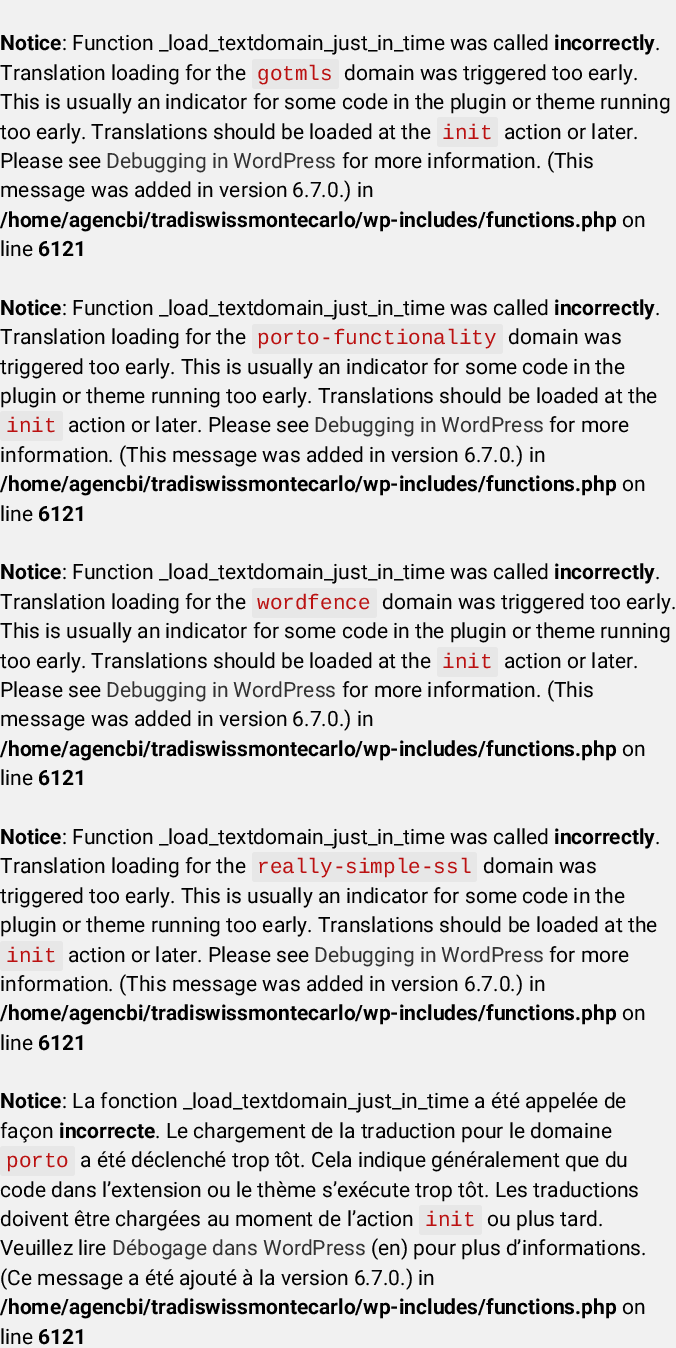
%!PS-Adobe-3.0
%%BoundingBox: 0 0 676 1348
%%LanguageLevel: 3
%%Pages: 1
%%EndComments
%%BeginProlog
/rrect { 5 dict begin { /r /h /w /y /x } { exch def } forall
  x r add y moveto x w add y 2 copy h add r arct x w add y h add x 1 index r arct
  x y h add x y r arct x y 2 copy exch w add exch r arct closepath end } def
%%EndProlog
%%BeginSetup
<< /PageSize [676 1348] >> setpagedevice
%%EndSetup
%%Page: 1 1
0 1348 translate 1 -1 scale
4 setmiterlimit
0.945 setgray
0 0 676 1348 rectfill
0.906 setgray
252 59 87 30 3 rrect fill
437 117 61 30 3 rrect fill
252 324 251 30 3 rrect fill
0 411 63 30 3 rrect fill
252 588 125 30 3 rrect fill
437 647 61 30 3 rrect fill
252 852 225 30 3 rrect fill
0 941 63 30 3 rrect fill
0 1146 75 30 3 rrect fill
419 1205 63 30 3 rrect fill
/Roboto-Bold [21 0 0 -21 0 0] selectfont
0 setgray
0 50 moveto (Notice) show
/Roboto-Regular [21 0 0 -21 0 0] selectfont
62 50 moveto (: Function _load_textdomain_just_in_time was called) show
/Roboto-Bold [21 0 0 -21 0 0] selectfont
554 50 moveto (incorrectly) show
/Roboto-Regular [21 0 0 -21 0 0] selectfont
655 50 moveto (.) show
0 80 moveto (Translation loading for the) show
/LiberationMono-Regular [21 0 0 -21 0 0] selectfont
0.733 0.067 0.067 setrgbcolor
257 80 moveto (gotmls) show
/Roboto-Regular [21 0 0 -21 0 0] selectfont
0 setgray
344 80 moveto (domain was triggered too early.) show
0 109 moveto (This is usually an indicator for some code in the plugin or theme running) show
0 139 moveto (too early. Translations should be loaded at the) show
/LiberationMono-Regular [21 0 0 -21 0 0] selectfont
0.733 0.067 0.067 setrgbcolor
442 139 moveto (init) show
/Roboto-Regular [21 0 0 -21 0 0] selectfont
0 setgray
504 139 moveto (action or later.) show
0 168 moveto (Please see) show
0.2 setgray
106 168 moveto (Debugging in WordPress) show
0 setgray
342 168 moveto (for more information. \(This) show
0 197 moveto (message was added in version 6.7.0.\) in) show
/Roboto-Bold [21 0 0 -21 0 0] selectfont
0 227 moveto (/home/agencbi/tradiswissmontecarlo/wp-includes/functions.php) show
/Roboto-Regular [21 0 0 -21 0 0] selectfont
622 227 moveto (on) show
0 256 moveto (line) show
/Roboto-Bold [21 0 0 -21 0 0] selectfont
38 256 moveto (6121) show
0 315 moveto (Notice) show
/Roboto-Regular [21 0 0 -21 0 0] selectfont
62 315 moveto (: Function _load_textdomain_just_in_time was called) show
/Roboto-Bold [21 0 0 -21 0 0] selectfont
554 315 moveto (incorrectly) show
/Roboto-Regular [21 0 0 -21 0 0] selectfont
655 315 moveto (.) show
0 344 moveto (Translation loading for the) show
/LiberationMono-Regular [21 0 0 -21 0 0] selectfont
0.733 0.067 0.067 setrgbcolor
257 344 moveto (porto-functionality) show
/Roboto-Regular [21 0 0 -21 0 0] selectfont
0 setgray
508 344 moveto (domain was) show
0 374 moveto (triggered too early. This is usually an indicator for some code in the) show
0 403 moveto (plugin or theme running too early. Translations should be loaded at the) show
/LiberationMono-Regular [21 0 0 -21 0 0] selectfont
0.733 0.067 0.067 setrgbcolor
6 432 moveto (init) show
/Roboto-Regular [21 0 0 -21 0 0] selectfont
0 setgray
68 432 moveto (action or later. Please see) show
0.2 setgray
314 432 moveto (Debugging in WordPress) show
0 setgray
549 432 moveto (for more) show
0 462 moveto (information. \(This message was added in version 6.7.0.\) in) show
/Roboto-Bold [21 0 0 -21 0 0] selectfont
0 491 moveto (/home/agencbi/tradiswissmontecarlo/wp-includes/functions.php) show
/Roboto-Regular [21 0 0 -21 0 0] selectfont
622 491 moveto (on) show
0 521 moveto (line) show
/Roboto-Bold [21 0 0 -21 0 0] selectfont
38 521 moveto (6121) show
0 579 moveto (Notice) show
/Roboto-Regular [21 0 0 -21 0 0] selectfont
62 579 moveto (: Function _load_textdomain_just_in_time was called) show
/Roboto-Bold [21 0 0 -21 0 0] selectfont
554 579 moveto (incorrectly) show
/Roboto-Regular [21 0 0 -21 0 0] selectfont
655 579 moveto (.) show
0 609 moveto (Translation loading for the) show
/LiberationMono-Regular [21 0 0 -21 0 0] selectfont
0.733 0.067 0.067 setrgbcolor
257 609 moveto (wordfence) show
/Roboto-Regular [21 0 0 -21 0 0] selectfont
0 setgray
382 609 moveto (domain was triggered too early.) show
0 638 moveto (This is usually an indicator for some code in the plugin or theme running) show
0 668 moveto (too early. Translations should be loaded at the) show
/LiberationMono-Regular [21 0 0 -21 0 0] selectfont
0.733 0.067 0.067 setrgbcolor
442 668 moveto (init) show
/Roboto-Regular [21 0 0 -21 0 0] selectfont
0 setgray
504 668 moveto (action or later.) show
0 697 moveto (Please see) show
0.2 setgray
106 697 moveto (Debugging in WordPress) show
0 setgray
342 697 moveto (for more information. \(This) show
0 726 moveto (message was added in version 6.7.0.\) in) show
/Roboto-Bold [21 0 0 -21 0 0] selectfont
0 756 moveto (/home/agencbi/tradiswissmontecarlo/wp-includes/functions.php) show
/Roboto-Regular [21 0 0 -21 0 0] selectfont
622 756 moveto (on) show
0 785 moveto (line) show
/Roboto-Bold [21 0 0 -21 0 0] selectfont
38 785 moveto (6121) show
0 844 moveto (Notice) show
/Roboto-Regular [21 0 0 -21 0 0] selectfont
62 844 moveto (: Function _load_textdomain_just_in_time was called) show
/Roboto-Bold [21 0 0 -21 0 0] selectfont
554 844 moveto (incorrectly) show
/Roboto-Regular [21 0 0 -21 0 0] selectfont
655 844 moveto (.) show
0 873 moveto (Translation loading for the) show
/LiberationMono-Regular [21 0 0 -21 0 0] selectfont
0.733 0.067 0.067 setrgbcolor
257 873 moveto (really-simple-ssl) show
/Roboto-Regular [21 0 0 -21 0 0] selectfont
0 setgray
483 873 moveto (domain was) show
0 903 moveto (triggered too early. This is usually an indicator for some code in the) show
0 932 moveto (plugin or theme running too early. Translations should be loaded at the) show
/LiberationMono-Regular [21 0 0 -21 0 0] selectfont
0.733 0.067 0.067 setrgbcolor
6 962 moveto (init) show
/Roboto-Regular [21 0 0 -21 0 0] selectfont
0 setgray
68 962 moveto (action or later. Please see) show
0.2 setgray
314 962 moveto (Debugging in WordPress) show
0 setgray
549 962 moveto (for more) show
0 991 moveto (information. \(This message was added in version 6.7.0.\) in) show
/Roboto-Bold [21 0 0 -21 0 0] selectfont
0 1020 moveto (/home/agencbi/tradiswissmontecarlo/wp-includes/functions.php) show
/Roboto-Regular [21 0 0 -21 0 0] selectfont
622 1020 moveto (on) show
0 1050 moveto (line) show
/Roboto-Bold [21 0 0 -21 0 0] selectfont
38 1050 moveto (6121) show
0 1108 moveto (Notice) show
/Roboto-Regular [21 0 0 -21 0 0] selectfont
62 1108 moveto (: La fonction _load_textdomain_just_in_time a été appelée de) show
0 1138 moveto (façon) show
/Roboto-Bold [21 0 0 -21 0 0] selectfont
59 1138 moveto (incorrecte) show
/Roboto-Regular [21 0 0 -21 0 0] selectfont
155 1138 moveto (. Le chargement de la traduction pour le domaine) show
/LiberationMono-Regular [21 0 0 -21 0 0] selectfont
0.733 0.067 0.067 setrgbcolor
6 1167 moveto (porto) show
/Roboto-Regular [21 0 0 -21 0 0] selectfont
0 setgray
80 1167 moveto (a été déclenché trop tôt. Cela indique généralement que du) show
0 1197 moveto (code dans l’extension ou le thème s’exécute trop tôt. Les traductions) show
0 1226 moveto (doivent être chargées au moment de l’action) show
/LiberationMono-Regular [21 0 0 -21 0 0] selectfont
0.733 0.067 0.067 setrgbcolor
425 1226 moveto (init) show
/Roboto-Regular [21 0 0 -21 0 0] selectfont
0 setgray
487 1226 moveto (ou plus tard.) show
0 1255 moveto (Veuillez lire) show
0.2 setgray
112 1255 moveto (Débogage dans WordPress) show
0 setgray
371 1255 moveto (\(en\) pour plus d’informations.) show
0 1285 moveto (\(Ce message a été ajouté à la version 6.7.0.\) in) show
/Roboto-Bold [21 0 0 -21 0 0] selectfont
0 1314 moveto (/home/agencbi/tradiswissmontecarlo/wp-includes/functions.php) show
/Roboto-Regular [21 0 0 -21 0 0] selectfont
622 1314 moveto (on) show
0 1344 moveto (line) show
/Roboto-Bold [21 0 0 -21 0 0] selectfont
38 1344 moveto (6121) show
showpage
%%EOF
